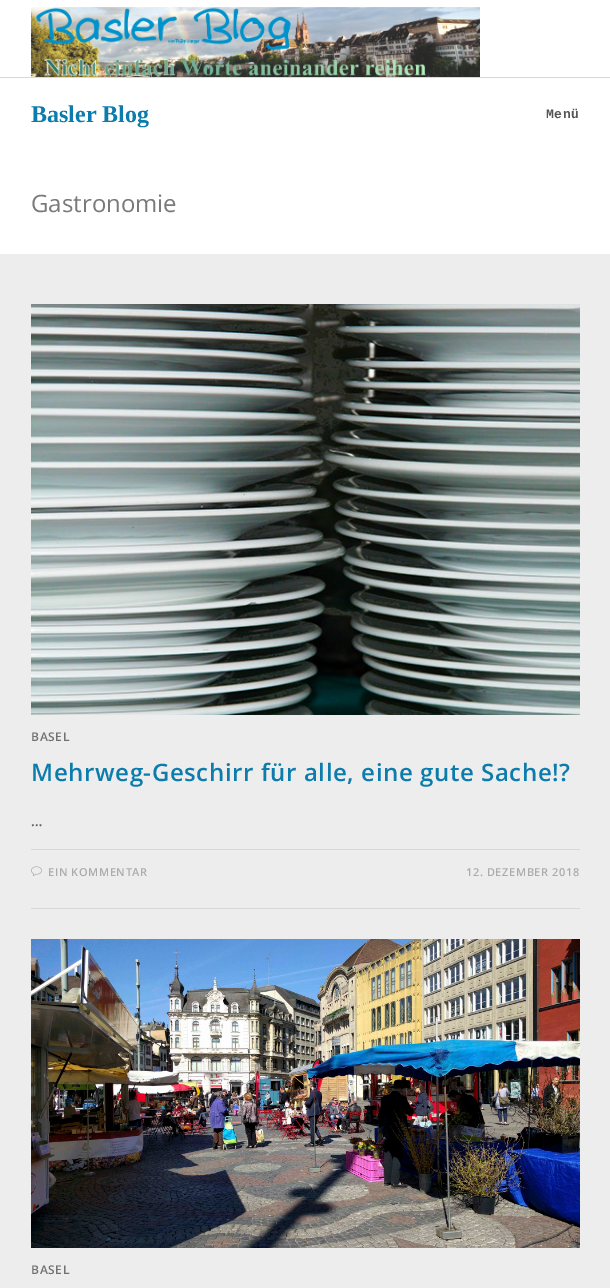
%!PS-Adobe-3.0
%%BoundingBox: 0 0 610 1288
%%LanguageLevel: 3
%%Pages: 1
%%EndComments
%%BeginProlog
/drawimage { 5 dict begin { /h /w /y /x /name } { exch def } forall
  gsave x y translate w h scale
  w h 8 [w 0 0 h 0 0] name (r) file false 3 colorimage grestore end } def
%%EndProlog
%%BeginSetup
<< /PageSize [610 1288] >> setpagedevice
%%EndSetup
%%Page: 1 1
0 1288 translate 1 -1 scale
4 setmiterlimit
0.929 setgray
0 0 610 1288 rectfill
1 setgray
0 0 610 77 rectfill
0.847 setgray
0 77 610 1 rectfill
(images/1.raw) 31 7 449 70 drawimage
1 setgray
0 78 610 176 rectfill
0.847 setgray
31 908 549 1 rectfill
(images/2.raw) 31 304 549 411 drawimage
31 849 549 1 rectfill
(images/3.raw) 31 866 11 10 drawimage
(images/4.raw) 31 939 549 309 drawimage
/LiberationSerif-Bold [24 0 0 -24 0 0] selectfont
0.043 0.486 0.675 setrgbcolor
31 122 moveto (Basler Blog) show
/LiberationMono-Bold [13 0 0 -13 0 0] selectfont
0.333 setgray
546 118 moveto 0.6 0 (Menü) ashow
/OpenSans-Regular [24 0 0 -24 0 0] selectfont
0.478 setgray
31 212 moveto (Gastronomie) show
/OpenSans-SemiBold [12 0 0 -12 0 0] selectfont
0.439 setgray
31 741 moveto 0.6 0 (BASEL) ashow
/OpenSans-SemiBold [24 0 0 -24 0 0] selectfont
0.043 0.486 0.675 setrgbcolor
31 781 moveto 0.6 0 (Mehrweg-Geschirr für alle, eine gute Sache!?) ashow
/OpenSans-SemiBold [14 0 0 -14 0 0] selectfont
0.376 setgray
31 826 moveto (…) show
/OpenSans-SemiBold [11 0 0 -11 0 0] selectfont
0.671 setgray
48 876 moveto 0.6 0 (EIN KOMMENTAR) ashow
466 876 moveto 0.6 0 (12. DEZEMBER 2018) ashow
/OpenSans-SemiBold [12 0 0 -12 0 0] selectfont
0.439 setgray
31 1274 moveto 0.6 0 (BASEL) ashow
showpage
%%EOF
